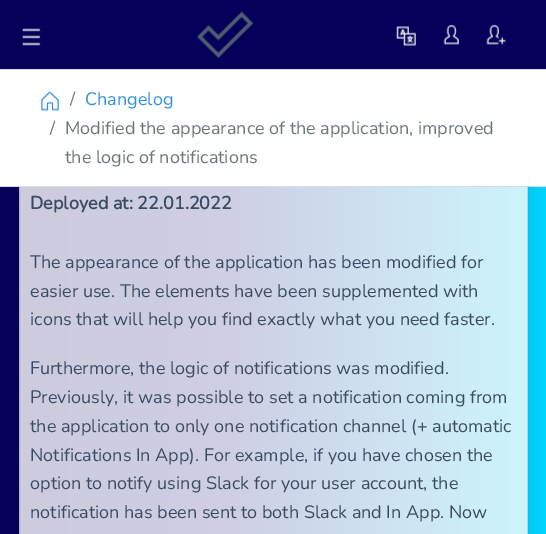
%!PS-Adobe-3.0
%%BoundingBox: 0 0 546 534
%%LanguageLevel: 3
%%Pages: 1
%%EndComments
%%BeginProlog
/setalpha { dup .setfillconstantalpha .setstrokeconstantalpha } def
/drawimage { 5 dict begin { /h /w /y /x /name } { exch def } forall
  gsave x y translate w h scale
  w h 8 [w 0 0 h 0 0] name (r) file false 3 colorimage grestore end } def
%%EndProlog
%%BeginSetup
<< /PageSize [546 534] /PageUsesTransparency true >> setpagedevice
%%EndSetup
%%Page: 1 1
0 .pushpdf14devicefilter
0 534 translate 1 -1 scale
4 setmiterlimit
1 setgray
0 0 546 534 rectfill
0.02 0 0.349 setrgbcolor
0 0 546 69 rectfill
gsave newpath 0 187 moveto 546 187 lineto 546 534 lineto 0 534 lineto closepath clip newpath
<< /ShadingType 2 /ColorSpace /DeviceRGB /Coords [0 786 546 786] /Extend [true true] /Function << /FunctionType 3 /Domain [0 1] /Functions [<< /FunctionType 2 /Domain [0 1] /C0 [0.02 0 0.345] /C1 [0.035 0.035 0.475] /N 1 >> << /FunctionType 2 /Domain [0 1] /C0 [0.035 0.035 0.475] /C1 [0 0.831 1] /N 1 >>] /Bounds [0.41] /Encode [0 1 0 1] >> >> shfill grestore
0.8 setalpha
1 setgray
19 187 509 347 rectfill
0.12 setalpha
0 setgray
19.5 178.5 508 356 rectstroke
1 setalpha
0.847 0.859 0.878 setrgbcolor
0 186 546 1 rectfill
(images/1.raw) 22 28 19 18 drawimage
(images/2.raw) 197 11 57 48 drawimage
(images/3.raw) 396 26 20 20 drawimage
(images/4.raw) 443 24 16 21 drawimage
(images/5.raw) 486 24 20 21 drawimage
1 setgray
19 178 509 8 rectfill
0.847 0.859 0.878 setrgbcolor
0 69 546 1 rectfill
(images/6.raw) 41 91 18 20 drawimage
/Nunito-ExtraLight [18 0 0 -18 0 0] selectfont
0.424 0.459 0.49 setrgbcolor
70 105 moveto (/) show
0.204 0.565 0.863 setrgbcolor
85 105 moveto (Changelog) show
0.424 0.459 0.49 setrgbcolor
50 134 moveto (/) show
65 134 moveto (Modified the appearance of the application, improved) show
65 163 moveto (the logic of notifications) show
/Nunito-Bold [18 0 0 -18 0 0] selectfont
0.235 0.294 0.392 setrgbcolor
30 209 moveto (Deployed at: 22.01.2022) show
/Nunito-ExtraLight [18 0 0 -18 0 0] selectfont
30 268 moveto (The appearance of the application has been modified for) show
30 297 moveto (easier use. The elements have been supplemented with) show
30 325 moveto (icons that will help you find exactly what you need faster.) show
30 374 moveto (Furthermore, the logic of notifications was modified.) show
30 403 moveto (Previously, it was possible to set a notification coming from) show
30 432 moveto (the application to only one notification channel \(+ automatic) show
30 461 moveto (Notifications In App\). For example, if you have chosen the) show
30 489 moveto (option to notify using Slack for your user account, the) show
30 518 moveto (notification has been sent to both Slack and In App. Now) show
.poppdf14devicefilter showpage
%%EOF
